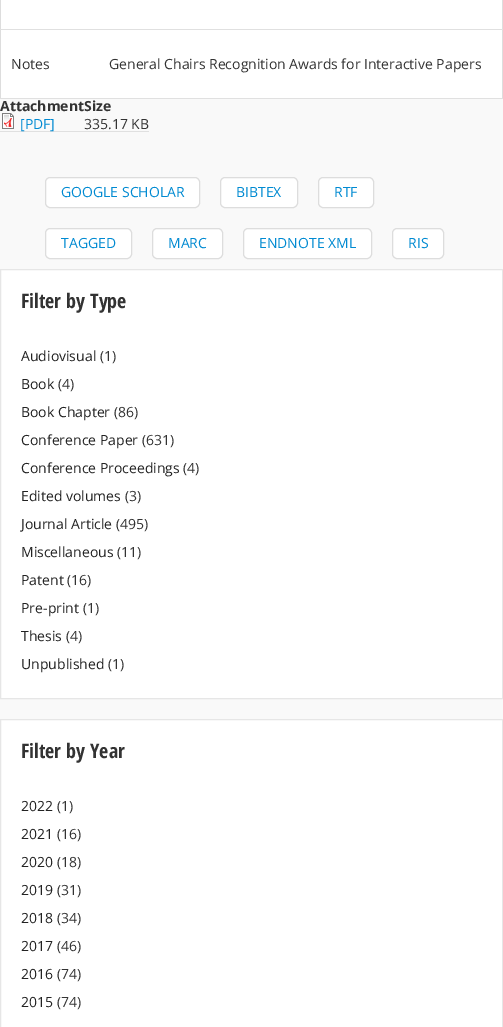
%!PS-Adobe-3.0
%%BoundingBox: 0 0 503 1027
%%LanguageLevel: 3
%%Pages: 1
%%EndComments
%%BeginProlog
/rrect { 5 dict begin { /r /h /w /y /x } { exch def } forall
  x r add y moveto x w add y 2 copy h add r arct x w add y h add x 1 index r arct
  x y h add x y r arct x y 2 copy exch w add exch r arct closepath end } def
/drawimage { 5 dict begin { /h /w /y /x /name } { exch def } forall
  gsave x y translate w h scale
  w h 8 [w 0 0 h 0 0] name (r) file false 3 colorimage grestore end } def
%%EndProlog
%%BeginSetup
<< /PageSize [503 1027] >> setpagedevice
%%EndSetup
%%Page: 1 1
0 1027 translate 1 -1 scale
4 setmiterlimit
0.976 setgray
0 0 503 1027 rectfill
0.867 setgray
502 0 1 99 rectfill
0 0 1 99 rectfill
0.878 setgray
0 29 503 1 rectfill
1 setgray
1 0 501 29 rectfill
0.878 setgray
0 98 503 1 rectfill
1 setgray
1 30 501 68 rectfill
0.878 setgray
0 131 149 1 rectfill
(images/1.raw) 2 113 12 16 drawimage
1 setgray
45.5 177.5 154 30 4.5 rrect gsave fill grestore
0.867 setgray
stroke
1 setgray
220.5 177.5 77 30 4.5 rrect gsave fill grestore
0.867 setgray
stroke
1 setgray
318.5 177.5 55 30 4.5 rrect gsave fill grestore
0.867 setgray
stroke
1 setgray
45.5 228.5 86 30 4.5 rrect gsave fill grestore
0.867 setgray
stroke
1 setgray
152.5 228.5 70 30 4.5 rrect gsave fill grestore
0.867 setgray
stroke
1 setgray
243.5 228.5 128 30 4.5 rrect gsave fill grestore
0.867 setgray
stroke
1 setgray
392.5 228.5 51 30 4.5 rrect gsave fill grestore
0.867 setgray
stroke
1 setgray
newpath 0.5 269.5 moveto 502.5 269.5 lineto 502.5 698.5 lineto 0.5 698.5 lineto closepath gsave fill grestore
0.902 setgray
stroke
1 setgray
newpath 0.5 719.5 moveto 502.5 719.5 lineto 502.5 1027.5 lineto 0.5 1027.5 lineto closepath gsave fill grestore
0.902 setgray
stroke
/OpenSans-Regular [14 0 0 -14 0 0] selectfont
0.2 setgray
11 69 moveto (Notes) show
109 69 moveto (General Chairs Recognition Awards for Interactive Papers) show
/OpenSans-Bold [14 0 0 -14 0 0] selectfont
0 111 moveto (AttachmentSize) show
/OpenSans-Regular [14 0 0 -14 0 0] selectfont
0 0.541 0.824 setrgbcolor
20 129 moveto ([PDF]) show
0.2 setgray
84 129 moveto (335.17 KB) show
0 0.541 0.824 setrgbcolor
61 197 moveto (GOOGLE SCHOLAR) show
236 197 moveto (BIBTEX) show
334 197 moveto (RTF) show
61 248 moveto (TAGGED) show
168 248 moveto (MARC) show
259 248 moveto (ENDNOTE XML) show
408 248 moveto (RIS) show
/OpenSansCondensed-Bold [20 0 0 -20 0 0] selectfont
0.2 setgray
21 308 moveto (Filter by Type) show
/OpenSans-Regular [14 0 0 -14 0 0] selectfont
0.133 setgray
21 361 moveto (Audiovisual) show
0.2 setgray
100 361 moveto (\(1\)) show
0.133 setgray
21 389 moveto (Book) show
0.2 setgray
58 389 moveto (\(4\)) show
0.133 setgray
21 417 moveto (Book Chapter) show
0.2 setgray
114 417 moveto (\(86\)) show
0.133 setgray
21 445 moveto (Conference Paper) show
0.2 setgray
142 445 moveto (\(631\)) show
0.133 setgray
21 473 moveto (Conference Proceedings) show
0.2 setgray
183 473 moveto (\(4\)) show
0.133 setgray
21 501 moveto (Edited volumes) show
0.2 setgray
125 501 moveto (\(3\)) show
0.133 setgray
21 529 moveto (Journal Article) show
0.2 setgray
116 529 moveto (\(495\)) show
0.133 setgray
21 557 moveto (Miscellaneous) show
0.2 setgray
117 557 moveto (\(11\)) show
0.133 setgray
21 585 moveto (Patent) show
0.2 setgray
67 585 moveto (\(16\)) show
0.133 setgray
21 613 moveto (Pre-print) show
0.2 setgray
83 613 moveto (\(1\)) show
0.133 setgray
21 641 moveto (Thesis) show
0.2 setgray
66 641 moveto (\(4\)) show
0.133 setgray
21 669 moveto (Unpublished) show
0.2 setgray
108 669 moveto (\(1\)) show
/OpenSansCondensed-Bold [20 0 0 -20 0 0] selectfont
21 758 moveto (Filter by Year) show
/OpenSans-Regular [14 0 0 -14 0 0] selectfont
0.133 setgray
21 811 moveto (2022) show
0.2 setgray
57 811 moveto (\(1\)) show
0.133 setgray
21 839 moveto (2021) show
0.2 setgray
57 839 moveto (\(16\)) show
0.133 setgray
21 867 moveto (2020) show
0.2 setgray
57 867 moveto (\(18\)) show
0.133 setgray
21 895 moveto (2019) show
0.2 setgray
57 895 moveto (\(31\)) show
0.133 setgray
21 923 moveto (2018) show
0.2 setgray
57 923 moveto (\(34\)) show
0.133 setgray
21 951 moveto (2017) show
0.2 setgray
57 951 moveto (\(46\)) show
0.133 setgray
21 979 moveto (2016) show
0.2 setgray
57 979 moveto (\(74\)) show
0.133 setgray
21 1007 moveto (2015) show
0.2 setgray
57 1007 moveto (\(74\)) show
showpage
%%EOF
